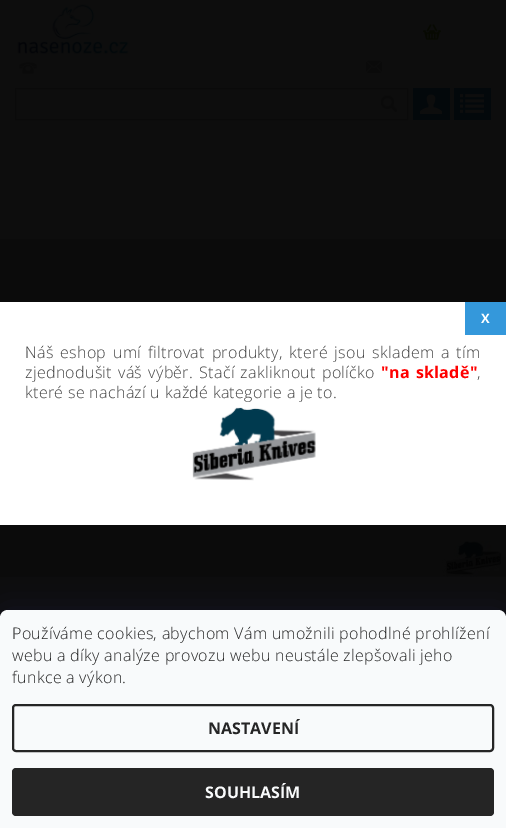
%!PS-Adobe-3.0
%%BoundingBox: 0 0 506 828
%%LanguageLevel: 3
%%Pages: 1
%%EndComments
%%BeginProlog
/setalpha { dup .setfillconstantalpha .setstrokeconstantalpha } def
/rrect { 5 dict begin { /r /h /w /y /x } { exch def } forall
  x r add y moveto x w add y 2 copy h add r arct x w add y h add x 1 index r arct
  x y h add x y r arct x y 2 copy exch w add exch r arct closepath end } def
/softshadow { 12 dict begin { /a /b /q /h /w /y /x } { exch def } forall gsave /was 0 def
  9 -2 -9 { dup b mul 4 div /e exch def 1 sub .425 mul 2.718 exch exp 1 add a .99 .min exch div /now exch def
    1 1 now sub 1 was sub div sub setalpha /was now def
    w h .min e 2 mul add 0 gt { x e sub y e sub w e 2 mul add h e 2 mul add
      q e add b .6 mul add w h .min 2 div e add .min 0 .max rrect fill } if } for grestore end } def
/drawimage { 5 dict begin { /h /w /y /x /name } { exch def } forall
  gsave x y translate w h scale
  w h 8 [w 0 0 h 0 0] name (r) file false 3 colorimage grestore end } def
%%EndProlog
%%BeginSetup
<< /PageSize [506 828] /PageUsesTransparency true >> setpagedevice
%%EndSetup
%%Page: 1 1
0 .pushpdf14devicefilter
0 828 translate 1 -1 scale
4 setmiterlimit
0.051 setgray
0 0 506 828 rectfill
(images/1.raw) 17 4 112 50 drawimage
(images/2.raw) 423 24 18 16 drawimage
0.012 0.031 0.043 setrgbcolor
413 88 37 32 rectfill
(images/3.raw) 420 94 22 21 drawimage
(images/4.raw) 19 62 18 12 drawimage
(images/5.raw) 366 60 16 13 drawimage
0.039 setgray
15.5 88.5 392 31 rectstroke
(images/6.raw) 381 95 16 17 drawimage
0.012 0.031 0.043 setrgbcolor
454 88 37 32 rectfill
(images/7.raw) 460 94 24 19 drawimage
(images/8.raw) 0 239 506 338 drawimage
0.039 setgray
0 613 506 1 rectfill
1 setgray
0 302 506 223 rectfill
0.204 0.596 0.859 setrgbcolor
465 302 41 33 rectfill
(images/9.raw) 192 407 124 74 drawimage
0.106 0.098 0.224 setrgbcolor
0 610 506 218 8 15 0.5 softshadow
0.973 0.98 0.984 setrgbcolor
newpath 8 610 moveto 498 610 lineto 502.5 610 506 613.5 506 618 curveto 506 828 lineto 0 828 lineto 0 618 lineto 0 613.5 3.5 610 8 610 curveto closepath fill
0.145 setgray
2 setlinewidth
13 705 480 46 3 rrect stroke
12 768 482 48 4 rrect fill
/OpenSans-Bold [13 0 0 -13 0 0] selectfont
1 setgray
481 323 moveto 0.32 0 (X) ashow
/OpenSans-Light [16 0 0 -16 0 0] selectfont
0.267 setgray
25 358 moveto 2.25 0 32 0.32 0 (Náš eshop umí filtrovat produkty, které jsou skladem a tím) awidthshow
25 378 moveto 1.5 0 32 0.32 0 (zjednodušit váš výběr. Stačí zakliknout políčko) awidthshow
/OpenSans-Bold [16 0 0 -16 0 0] selectfont
1 0 0 setrgbcolor
381 378 moveto 1.5 0 32 0.32 0 ("na skladě") awidthshow
/OpenSans-Light [16 0 0 -16 0 0] selectfont
0.267 setgray
477 378 moveto 0.32 0 (,) ashow
25 398 moveto 0.32 0 (které se nachází u každé kategorie a je to.) ashow
0.145 setgray
12 639 moveto 0.32 0 (Používáme cookies, abychom Vám umožnili pohodlné prohlížení) ashow
12 661 moveto 0.32 0 (webu a díky analýze provozu webu neustále zlepšovali jeho) ashow
12 683 moveto 0.32 0 (funkce a výkon.) ashow
/OpenSans-Bold [16 0 0 -16 0 0] selectfont
208 734 moveto (NASTAVENÍ) show
0.973 0.98 0.984 setrgbcolor
205 798 moveto (SOUHLASÍM) show
.poppdf14devicefilter showpage
%%EOF
